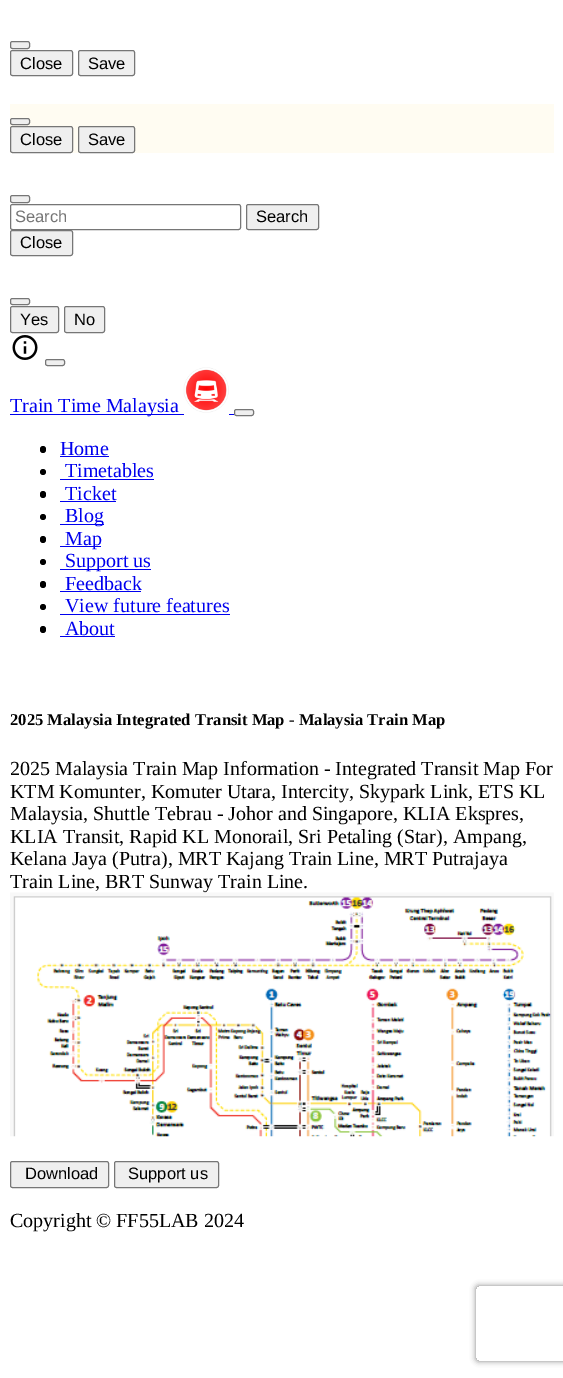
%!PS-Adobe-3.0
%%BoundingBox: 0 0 563 1378
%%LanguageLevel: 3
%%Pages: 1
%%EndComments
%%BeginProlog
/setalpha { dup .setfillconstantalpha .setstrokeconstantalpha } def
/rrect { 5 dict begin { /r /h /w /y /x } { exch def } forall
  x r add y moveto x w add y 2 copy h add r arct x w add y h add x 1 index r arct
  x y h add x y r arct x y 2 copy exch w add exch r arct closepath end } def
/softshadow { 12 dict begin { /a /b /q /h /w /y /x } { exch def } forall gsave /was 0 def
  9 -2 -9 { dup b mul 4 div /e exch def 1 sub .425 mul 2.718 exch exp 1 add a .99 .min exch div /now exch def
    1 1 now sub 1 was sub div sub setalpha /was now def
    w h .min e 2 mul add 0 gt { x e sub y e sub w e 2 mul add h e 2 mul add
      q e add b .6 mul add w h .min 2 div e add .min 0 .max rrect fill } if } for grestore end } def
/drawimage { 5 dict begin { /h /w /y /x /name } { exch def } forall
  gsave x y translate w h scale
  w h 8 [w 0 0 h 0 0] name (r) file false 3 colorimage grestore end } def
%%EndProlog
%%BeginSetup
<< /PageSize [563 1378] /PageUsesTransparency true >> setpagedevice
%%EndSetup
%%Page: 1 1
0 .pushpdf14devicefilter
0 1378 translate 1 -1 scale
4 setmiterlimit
1 setgray
0 0 563 1378 rectfill
0.937 setgray
10.5 41.5 19 7 2 rrect gsave fill grestore
0.463 setgray
stroke
0.937 setgray
10.5 50.5 62 25 2 rrect gsave fill grestore
0.463 setgray
stroke
0.937 setgray
78.5 50.5 56 25 2 rrect gsave fill grestore
0.463 setgray
stroke
1 0.988 0.949 setrgbcolor
10 104 544 49 rectfill
0.937 setgray
10.5 118.5 19 6 2 rrect gsave fill grestore
0.463 setgray
stroke
0.937 setgray
10.5 126.5 62 26 2 rrect gsave fill grestore
0.463 setgray
stroke
0.937 setgray
78.5 126.5 56 26 2 rrect gsave fill grestore
0.463 setgray
stroke
0.937 setgray
10.5 195.5 19 7 2 rrect gsave fill grestore
0.463 setgray
stroke
10.5 204.5 230 25 2 rrect stroke
0.937 setgray
246.5 204.5 72 25 2 rrect gsave fill grestore
0.463 setgray
stroke
0.937 setgray
10.5 230.5 62 25 2 rrect gsave fill grestore
0.463 setgray
stroke
0.937 setgray
10.5 298.5 19 6 2 rrect gsave fill grestore
0.463 setgray
stroke
0.937 setgray
10.5 306.5 48 26 2 rrect gsave fill grestore
0.463 setgray
stroke
0.937 setgray
64.5 306.5 40 26 2 rrect gsave fill grestore
0.463 setgray
stroke
(images/1.raw) 12 335 26 25 drawimage
0.937 setgray
45.5 359.5 19 6 2 rrect gsave fill grestore
0.463 setgray
stroke
0 0 0.933 setrgbcolor
10 414 174 1 rectfill
229 414 5 1 rectfill
(images/2.raw) 183 367 46 46 drawimage
0.937 setgray
234.5 409.5 19 6 2 rrect gsave fill grestore
0.463 setgray
stroke
0 setgray
40 446 6 7 3 rrect fill
0 0 0.933 setrgbcolor
60 456 49 1 rectfill
0 setgray
newpath 43 472 3 0 360 arc closepath fill
0 0 0.933 setrgbcolor
60 479 94 1 rectfill
0 setgray
40 491 6 7 3 rrect fill
0 0 0.933 setrgbcolor
60 501 56 1 rectfill
0 setgray
newpath 43 517 3 0 360 arc closepath fill
0 0 0.933 setrgbcolor
60 524 44 1 rectfill
0 setgray
40 536 6 7 3 rrect fill
0 0 0.933 setrgbcolor
60 546 41 1 rectfill
0 setgray
newpath 43 562 3 0 360 arc closepath fill
0 0 0.933 setrgbcolor
60 569 91 1 rectfill
0 setgray
40 581 6 7 3 rrect fill
0 0 0.933 setrgbcolor
60 591 81 1 rectfill
0 setgray
newpath 43 607 3 0 360 arc closepath fill
0 0 0.933 setrgbcolor
60 614 170 1 rectfill
0 setgray
40 626 6 7 3 rrect fill
0 0 0.933 setrgbcolor
60 636 55 1 rectfill
0.937 setgray
10.5 1161.5 98 26 2 rrect gsave fill grestore
0.463 setgray
stroke
0.937 setgray
114.5 1161.5 104 26 2 rrect gsave fill grestore
0.463 setgray
stroke
gsave
newpath 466 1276 moveto 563 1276 lineto 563 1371 lineto 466 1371 lineto closepath 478.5 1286 moveto 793.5 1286 lineto 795 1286 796 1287 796 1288.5 curveto 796 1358.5 lineto 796 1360 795 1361 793.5 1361 curveto 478.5 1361 lineto 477 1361 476 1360 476 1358.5 curveto 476 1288.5 lineto 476 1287 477 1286 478.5 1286 curveto closepath eoclip newpath
0.502 setgray
476 1286 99 75 2.5 3 1 softshadow
grestore
/LiberationSans-Regular [16.5 0 0 -16.5 0 0] selectfont
0 setgray
20 69 moveto (Close) show
88 69 moveto (Save) show
20 145 moveto (Close) show
88 145 moveto (Save) show
0.459 setgray
15 222 moveto (Search) show
0 setgray
256 222 moveto (Search) show
20 248 moveto (Close) show
20 325 moveto (Yes) show
74 325 moveto (No) show
/LiberationSerif-Regular [20 0 0 -20 0 0] selectfont
0 0 0.933 setrgbcolor
10 412 moveto (Train Time Malaysia) show
60 455 moveto (Home) show
65 477 moveto (Timetables) show
65 500 moveto (Ticket) show
65 522 moveto (Blog) show
65 545 moveto (Map) show
65 567 moveto (Support us) show
65 590 moveto (Feedback) show
65 612 moveto (View future features) show
65 635 moveto (About) show
/LiberationSerif-Bold [16.6 0 0 -16.6 0 0] selectfont
0 setgray
10 725 moveto (2025 Malaysia Integrated Transit Map - Malaysia Train Map) show
/LiberationSerif-Regular [20 0 0 -20 0 0] selectfont
10 775 moveto (2025 Malaysia Train Map Information - Integrated Transit Map For) show
10 798 moveto (KTM Komunter, Komuter Utara, Intercity, Skypark Link, ETS KL) show
10 820 moveto (Malaysia, Shuttle Tebrau - Johor and Singapore, KLIA Ekspres,) show
10 843 moveto (KLIA Transit, Rapid KL Monorail, Sri Petaling \(Star\), Ampang,) show
10 865 moveto (Kelana Jaya \(Putra\), MRT Kajang Train Line, MRT Putrajaya) show
10 888 moveto (Train Line, BRT Sunway Train Line.) show
(images/3.raw) 10 892 544 245 drawimage
/LiberationSans-Regular [16.5 0 0 -16.5 0 0] selectfont
25 1179 moveto (Download) show
128 1179 moveto (Support us) show
/LiberationSerif-Regular [20 0 0 -20 0 0] selectfont
10 1227 moveto (Copyright © FF55LAB 2024) show
.poppdf14devicefilter showpage
%%EOF
